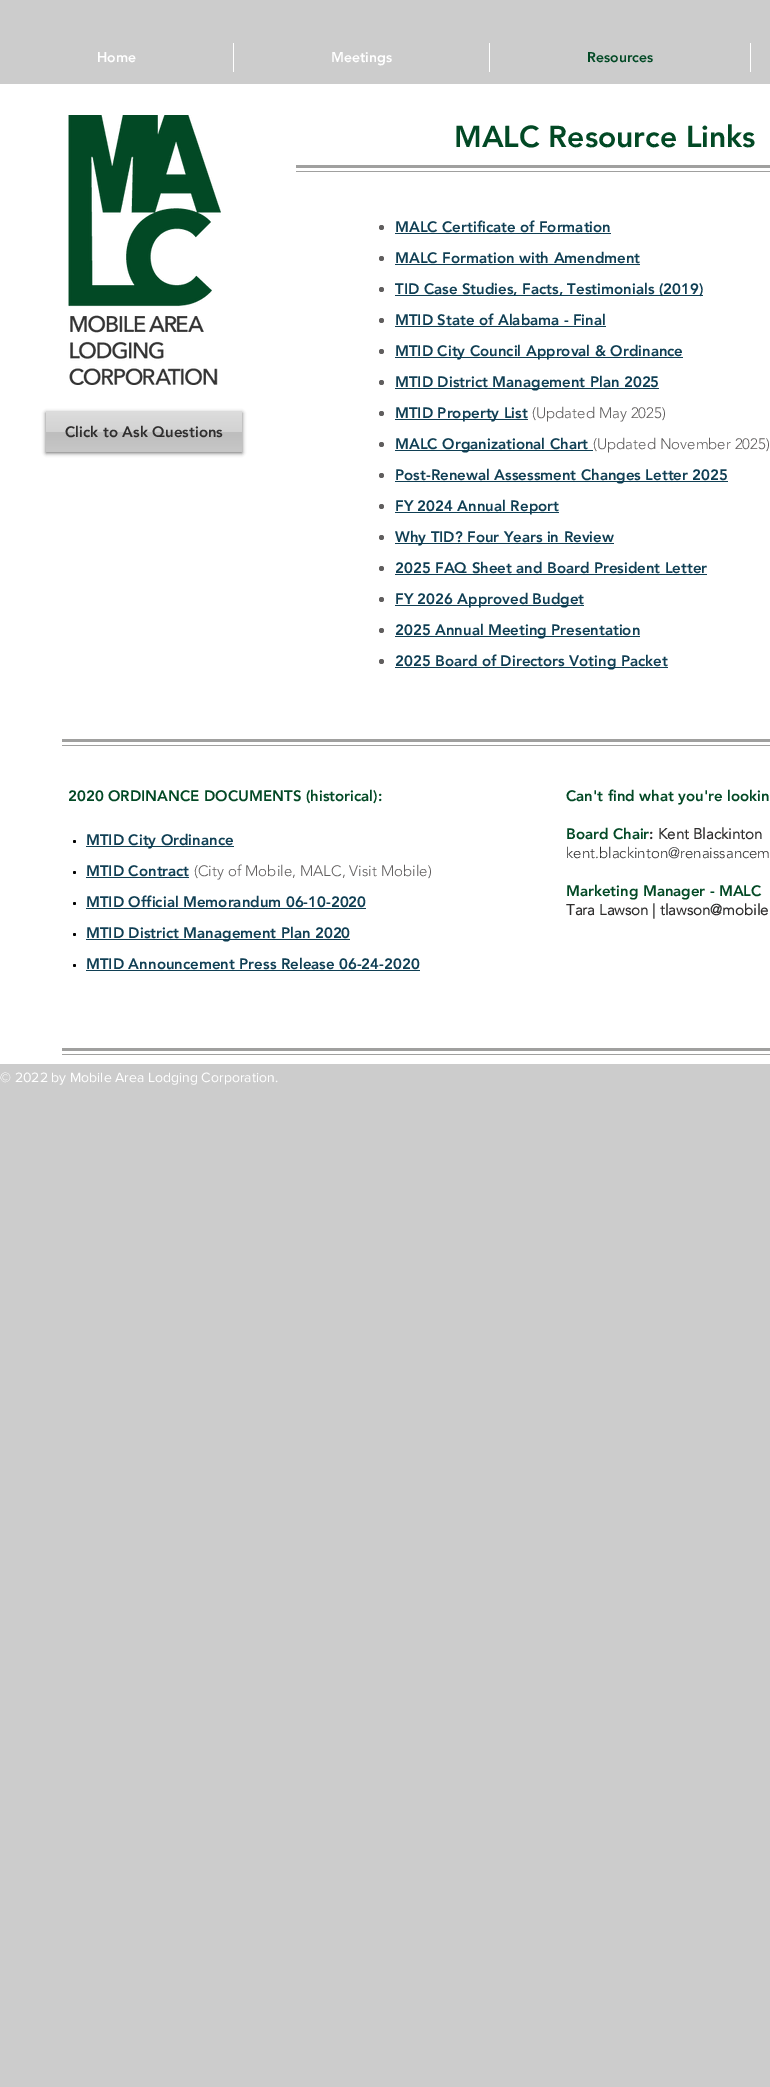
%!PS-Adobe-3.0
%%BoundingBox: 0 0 770 2087
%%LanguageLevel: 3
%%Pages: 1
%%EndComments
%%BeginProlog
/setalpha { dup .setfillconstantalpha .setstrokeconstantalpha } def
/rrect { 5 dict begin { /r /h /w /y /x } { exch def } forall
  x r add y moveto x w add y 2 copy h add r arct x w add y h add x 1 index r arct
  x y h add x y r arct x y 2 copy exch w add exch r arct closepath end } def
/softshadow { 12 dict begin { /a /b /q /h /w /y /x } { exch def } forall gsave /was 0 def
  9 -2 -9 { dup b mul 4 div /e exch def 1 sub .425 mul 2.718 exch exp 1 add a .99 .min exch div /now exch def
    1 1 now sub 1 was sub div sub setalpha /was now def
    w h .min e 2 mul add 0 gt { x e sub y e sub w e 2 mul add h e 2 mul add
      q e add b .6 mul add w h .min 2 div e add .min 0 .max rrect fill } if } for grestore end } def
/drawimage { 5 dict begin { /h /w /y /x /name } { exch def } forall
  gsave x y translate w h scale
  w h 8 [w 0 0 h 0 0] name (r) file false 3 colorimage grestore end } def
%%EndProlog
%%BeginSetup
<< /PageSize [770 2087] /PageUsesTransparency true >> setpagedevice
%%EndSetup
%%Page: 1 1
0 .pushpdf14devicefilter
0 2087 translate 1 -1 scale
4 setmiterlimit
0.8 setgray
0 0 770 2087 rectfill
1 setgray
233 43 1 29 rectfill
489 43 1 29 rectfill
750 43 1 29 rectfill
0 84 770 980 rectfill
(images/1.raw) 68 115 153 270 drawimage
0.627 0.627 0.624 setrgbcolor
296 165 474 3 rectfill
296 171 474 1 rectfill
0 setgray
46 413 196 40 0 2 0.6 softshadow
0.8 setgray
46 412 196 40 rectfill
(images/2.raw) 46 412 196 40 drawimage
0.376 0.369 0.369 setrgbcolor
newpath 381.5 227.5 2.5 0 360 arc closepath fill
0.063 0.247 0.329 setrgbcolor
395 233 216 1 rectfill
0.376 0.369 0.369 setrgbcolor
newpath 381.5 258.5 2.5 0 360 arc closepath fill
0.063 0.247 0.329 setrgbcolor
395 264 245 1 rectfill
0.376 0.369 0.369 setrgbcolor
newpath 381.5 289.5 2.5 0 360 arc closepath fill
0.063 0.247 0.329 setrgbcolor
395 295 308 1 rectfill
0.376 0.369 0.369 setrgbcolor
newpath 381.5 320.5 2.5 0 360 arc closepath fill
0.063 0.247 0.329 setrgbcolor
395 326 211 1 rectfill
0.376 0.369 0.369 setrgbcolor
newpath 381.5 351.5 2.5 0 360 arc closepath fill
0.063 0.247 0.329 setrgbcolor
395 357 288 1 rectfill
0.376 0.369 0.369 setrgbcolor
newpath 381.5 382.5 2.5 0 360 arc closepath fill
0.063 0.247 0.329 setrgbcolor
395 388 264 1 rectfill
0.376 0.369 0.369 setrgbcolor
newpath 381.5 413.5 2.5 0 360 arc closepath fill
0.063 0.247 0.329 setrgbcolor
395 419 133 1 rectfill
0.376 0.369 0.369 setrgbcolor
newpath 381.5 444.5 2.5 0 360 arc closepath fill
0.063 0.247 0.329 setrgbcolor
395 450 198 1 rectfill
0.376 0.369 0.369 setrgbcolor
newpath 381.5 475.5 2.5 0 360 arc closepath fill
0.063 0.247 0.329 setrgbcolor
395 481 333 1 rectfill
0.376 0.369 0.369 setrgbcolor
newpath 381.5 506.5 2.5 0 360 arc closepath fill
0.063 0.247 0.329 setrgbcolor
395 512 164 1 rectfill
0.376 0.369 0.369 setrgbcolor
newpath 381.5 537.5 2.5 0 360 arc closepath fill
0.063 0.247 0.329 setrgbcolor
395 543 219 1 rectfill
0.376 0.369 0.369 setrgbcolor
newpath 381.5 568.5 2.5 0 360 arc closepath fill
0.063 0.247 0.329 setrgbcolor
395 574 312 1 rectfill
0.376 0.369 0.369 setrgbcolor
newpath 381.5 599.5 2.5 0 360 arc closepath fill
0.063 0.247 0.329 setrgbcolor
395 605 189 1 rectfill
0.376 0.369 0.369 setrgbcolor
newpath 381.5 630.5 2.5 0 360 arc closepath fill
0.063 0.247 0.329 setrgbcolor
395 636 245 1 rectfill
0.376 0.369 0.369 setrgbcolor
newpath 381.5 661.5 2.5 0 360 arc closepath fill
0.063 0.247 0.329 setrgbcolor
395 667 273 1 rectfill
0.627 0.627 0.624 setrgbcolor
62 739 708 3 rectfill
62 745 708 1 rectfill
0 setgray
newpath 74.5 841.5 1.5 0 360 arc closepath fill
0.063 0.247 0.329 setrgbcolor
86 846 148 1 rectfill
0 setgray
newpath 74.5 872.5 1.5 0 360 arc closepath fill
0.063 0.247 0.329 setrgbcolor
86 877 103 1 rectfill
0 setgray
newpath 74.5 903.5 1.5 0 360 arc closepath fill
0.063 0.247 0.329 setrgbcolor
86 908 280 1 rectfill
0 setgray
newpath 74.5 934.5 1.5 0 360 arc closepath fill
0.063 0.247 0.329 setrgbcolor
86 939 264 1 rectfill
0 setgray
newpath 74.5 965.5 1.5 0 360 arc closepath fill
0.063 0.247 0.329 setrgbcolor
86 970 334 1 rectfill
0.627 0.627 0.624 setrgbcolor
62 1048 708 3 rectfill
62 1054 708 1 rectfill
/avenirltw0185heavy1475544-Black [14 0 0 -14 0 0] selectfont
1 setgray
97 62 moveto (Home) show
331 62 moveto (Meetings) show
0.008 0.286 0.145 setrgbcolor
587 62 moveto (Resources) show
/avenirltw0185heavy1475544-Black [30 0 0 -30 0 0] selectfont
454 147 moveto (MALC Resource Links) show
/avenirltw0185heavy1475544-Black [15 0 0 -15 0 0] selectfont
0.184 0.18 0.18 setrgbcolor
65 437 moveto (Click to Ask Questions) show
0.063 0.247 0.329 setrgbcolor
395 232 moveto (MALC Certificate of Formation) show
395 263 moveto (MALC Formation with Amendment) show
395 294 moveto (TID Case Studies, Facts, Testimonials \(2019\)) show
395 325 moveto (MTID State of Alabama - Final) show
395 356 moveto (MTID City Council Approval & Ordinance) show
395 387 moveto (MTID District Management Plan 2025) show
395 418 moveto (MTID Property List) show
/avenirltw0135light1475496-Light [15 0 0 -15 0 0] selectfont
0.376 0.369 0.369 setrgbcolor
532 418 moveto (\(Updated May 2025\)) show
/avenirltw0185heavy1475544-Black [15 0 0 -15 0 0] selectfont
0.063 0.247 0.329 setrgbcolor
395 449 moveto (MALC Organizational Chart) show
/avenirltw0135light1475496-Light [15 0 0 -15 0 0] selectfont
0.376 0.369 0.369 setrgbcolor
593 449 moveto (\(Updated November 2025\)) show
/avenirltw0185heavy1475544-Black [15 0 0 -15 0 0] selectfont
0.063 0.247 0.329 setrgbcolor
395 480 moveto (Post-Renewal Assessment Changes Letter 2025) show
395 511 moveto (FY 2024 Annual Report) show
395 542 moveto (Why TID? Four Years in Review) show
395 573 moveto (2025 FAQ Sheet and Board President Letter) show
395 604 moveto (FY 2026 Approved Budget) show
395 635 moveto (2025 Annual Meeting Presentation) show
395 666 moveto (2025 Board of Directors Voting Packet) show
0.008 0.286 0.145 setrgbcolor
68 801 moveto (2020 ORDINANCE DOCUMENTS \(historical\):) show
0.063 0.247 0.329 setrgbcolor
86 845 moveto (MTID City Ordinance) show
86 876 moveto (MTID Contract) show
/avenirltw0135light1475496-Light [15 0 0 -15 0 0] selectfont
0.376 0.369 0.369 setrgbcolor
194 876 moveto (\(City of Mobile, MALC, Visit Mobile\)) show
/avenirltw0185heavy1475544-Black [15 0 0 -15 0 0] selectfont
0.063 0.247 0.329 setrgbcolor
86 907 moveto (MTID Official Memorandum 06-10-2020) show
86 938 moveto (MTID District Management Plan 2020) show
86 969 moveto (MTID Announcement Press Release 06-24-2020) show
0.008 0.286 0.145 setrgbcolor
566 801 moveto (Can't find what you're lookin) show
566 839 moveto (Board Chair) show
0.184 0.18 0.18 setrgbcolor
649 839 moveto (:) show
/avenirltw0135light1475496-Bold [15 0 0 -15 0 0] selectfont
658 839 moveto (Kent Blackinton) show
/avenirltw0135light1475496-Light [15 0 0 -15 0 0] selectfont
566 858 moveto (kent.blackinton@renaissancem) show
/avenirltw0185heavy1475544-Black [15 0 0 -15 0 0] selectfont
0.008 0.286 0.145 setrgbcolor
566 896 moveto (Marketing Manager - MALC) show
/avenirltw0135light1475496-Bold [15 0 0 -15 0 0] selectfont
0.184 0.18 0.18 setrgbcolor
566 915 moveto (Tara Lawson | tlawson@mobile) show
/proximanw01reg-Regular [14 0 0 -14 0 0] selectfont
1 setgray
0 1082 moveto (© 2022 by Mobile Area Lodging Corporation.) show
.poppdf14devicefilter showpage
%%EOF
